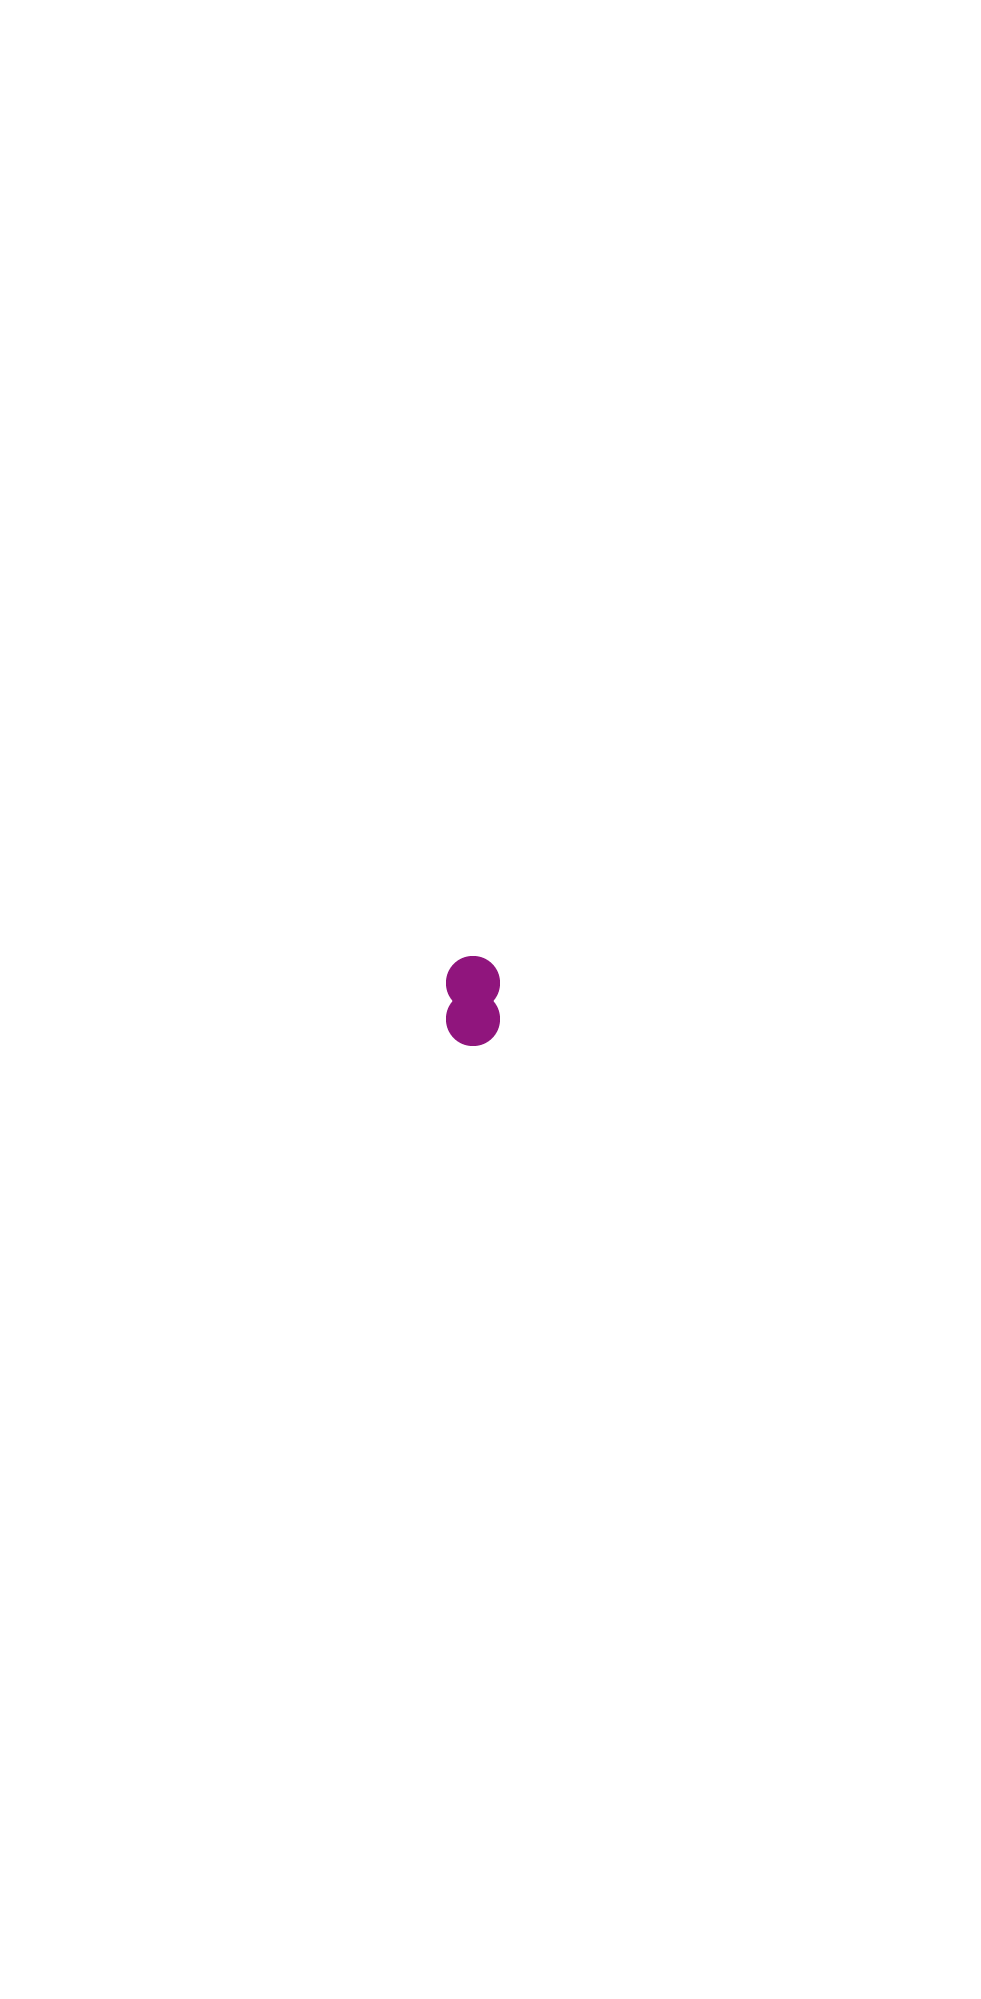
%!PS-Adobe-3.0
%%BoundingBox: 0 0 981 1999
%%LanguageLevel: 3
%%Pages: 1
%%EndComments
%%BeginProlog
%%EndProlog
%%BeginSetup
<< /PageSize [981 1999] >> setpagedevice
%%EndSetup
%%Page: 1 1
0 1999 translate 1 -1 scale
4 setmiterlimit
1 setgray
0 0 981 1999 rectfill
0.565 0.082 0.49 setrgbcolor
newpath 473 983 27 0 360 arc closepath fill
newpath 473 1019 27 0 360 arc closepath fill
showpage
%%EOF
